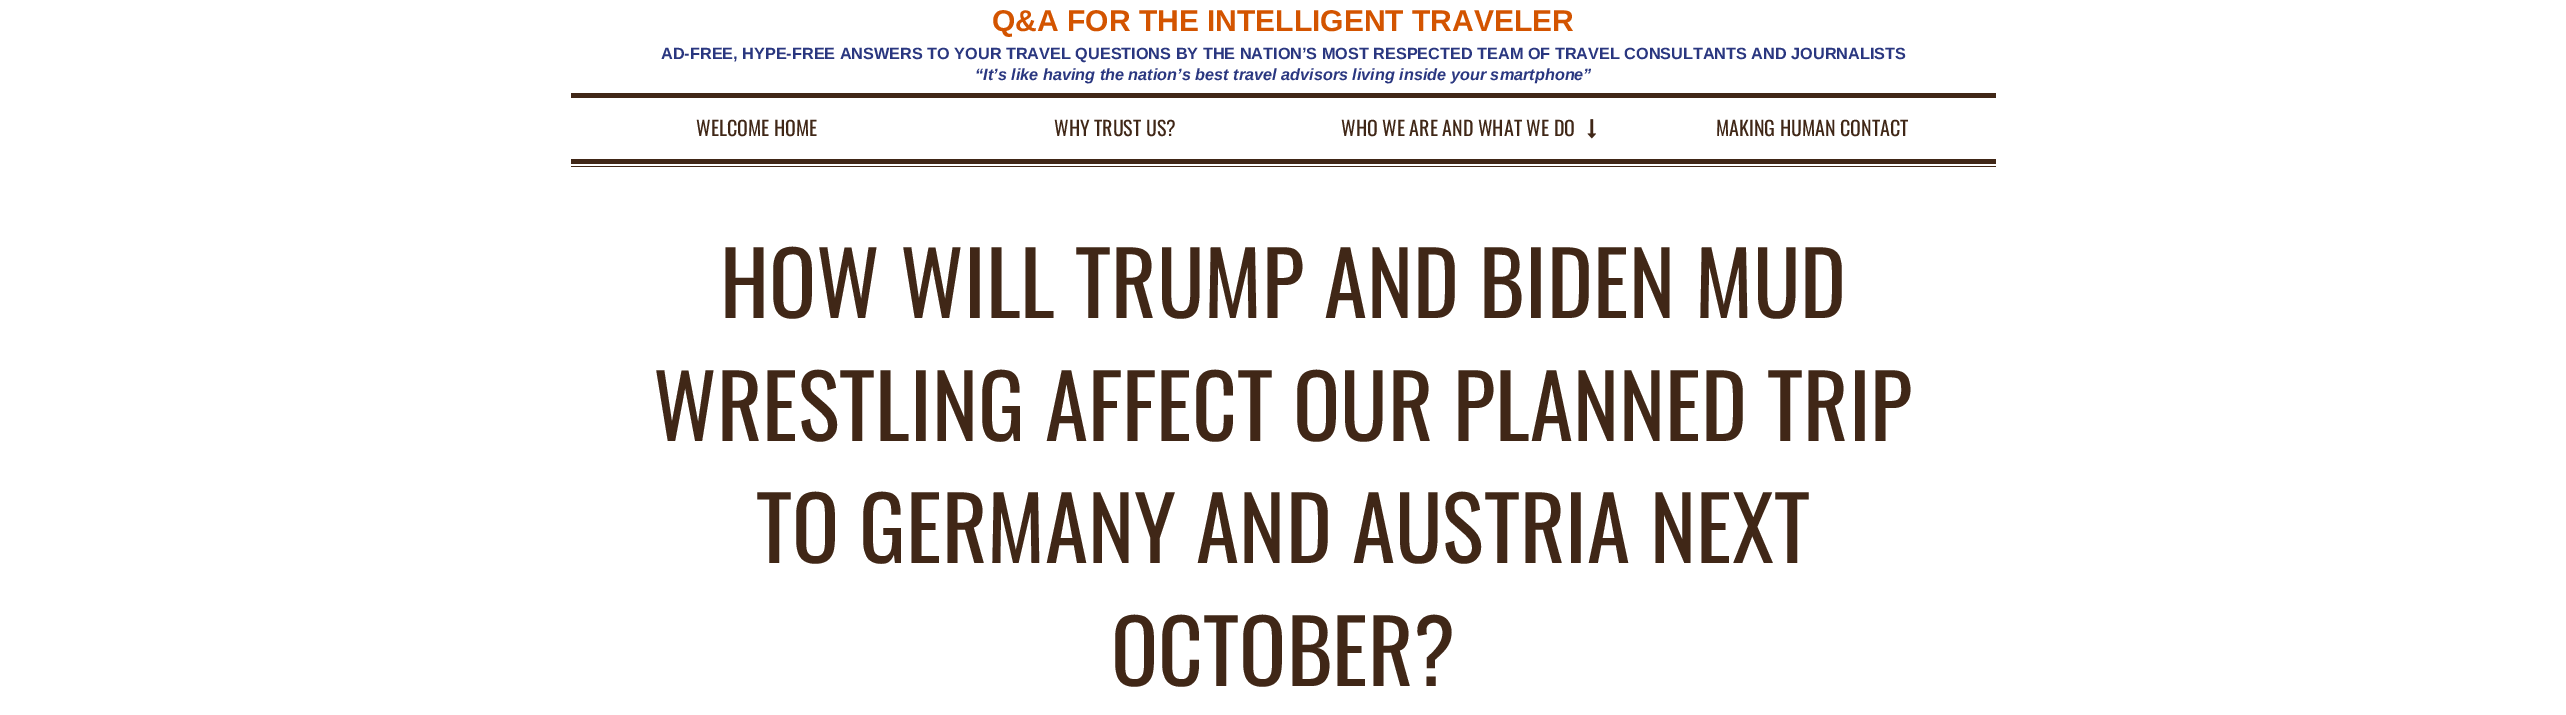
%!PS-Adobe-3.0
%%BoundingBox: 0 0 2566 715
%%LanguageLevel: 3
%%Pages: 1
%%EndComments
%%BeginProlog
/drawimage { 5 dict begin { /h /w /y /x /name } { exch def } forall
  gsave x y translate w h scale
  w h 8 [w 0 0 h 0 0] name (r) file false 3 colorimage grestore end } def
%%EndProlog
%%BeginSetup
<< /PageSize [2566 715] >> setpagedevice
%%EndSetup
%%Page: 1 1
0 715 translate 1 -1 scale
4 setmiterlimit
1 setgray
0 0 2566 715 rectfill
0.251 0.153 0.09 setrgbcolor
571 93 1425 5 rectfill
571 166 1425 1 rectfill
571 159 1425 5 rectfill
(images/1.raw) 1587 119 9 20 drawimage
/LiberationSans-Bold [30 0 0 -30 0 0] selectfont
0.827 0.329 0 setrgbcolor
992 31 moveto (Q&A FOR THE INTELLIGENT TRAVELER) show
/LiberationSans-Bold [16.25 0 0 -16.25 0 0] selectfont
0.165 0.216 0.502 setrgbcolor
661 59 moveto (AD-FREE, HYPE-FREE ANSWERS TO YOUR TRAVEL QUESTIONS BY THE NATION’S MOST RESPECTED TEAM OF TRAVEL CONSULTANTS AND JOURNALISTS) show
/LiberationSans-BoldItalic [16.25 0 0 -16.25 0 0] selectfont
975 80 moveto (“It’s like having the nation’s best travel advisors living inside your smartphone”) show
/Oswald-Regular [20 0 0 -20 0 0] selectfont
0.251 0.153 0.09 setrgbcolor
696 136 moveto (WELCOME HOME) show
1054 136 moveto (WHY TRUST US?) show
1341 136 moveto (WHO WE ARE AND WHAT WE DO) show
1716 136 moveto (MAKING HUMAN CONTACT) show
/Oswald-Regular [87.5 0 0 -87.5 0 0] selectfont
720 318 moveto (HOW WILL TRUMP AND BIDEN MUD) show
653 441 moveto (WRESTLING AFFECT OUR PLANNED TRIP) show
756 563 moveto (TO GERMANY AND AUSTRIA NEXT) show
1111 686 moveto (OCTOBER?) show
showpage
%%EOF
